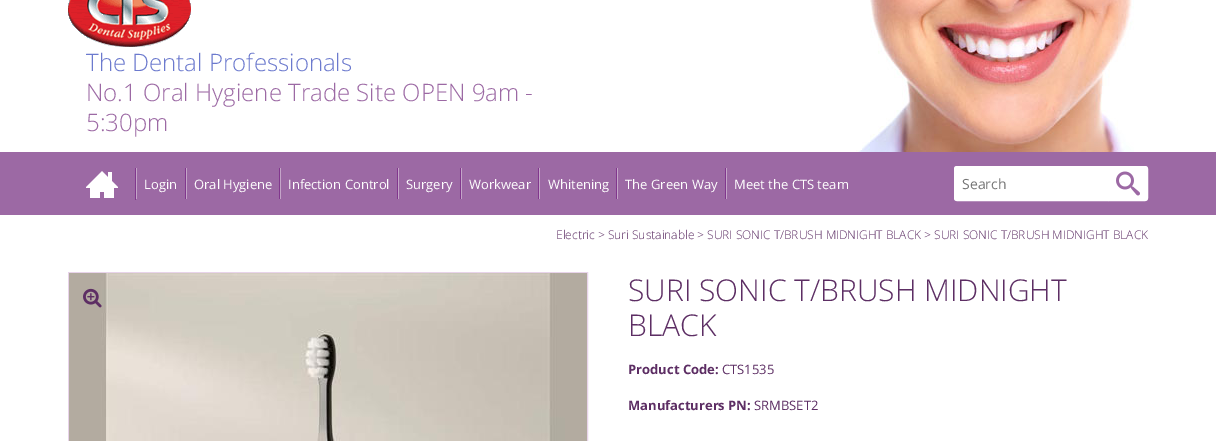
%!PS-Adobe-3.0
%%BoundingBox: 0 0 1216 441
%%LanguageLevel: 3
%%Pages: 1
%%EndComments
%%BeginProlog
/drawimage { 5 dict begin { /h /w /y /x /name } { exch def } forall
  gsave x y translate w h scale
  w h 8 [w 0 0 h 0 0] name (r) file false 3 colorimage grestore end } def
%%EndProlog
%%BeginSetup
<< /PageSize [1216 441] >> setpagedevice
%%EndSetup
%%Page: 1 1
0 441 translate 1 -1 scale
4 setmiterlimit
1 setgray
0 0 1216 441 rectfill
(images/1.raw) 856 0 278 152 drawimage
(images/2.raw) 68 0 123 47 drawimage
0.612 0.412 0.643 setrgbcolor
0 152 1216 63 rectfill
0.506 0.216 0.553 setrgbcolor
135 168 1 32 rectfill
(images/3.raw) 86 171 32 27 drawimage
185 168 1 31 rectfill
0.769 0.647 0.784 setrgbcolor
136 168 1 31 rectfill
0.506 0.216 0.553 setrgbcolor
279 168 1 31 rectfill
0.769 0.647 0.784 setrgbcolor
186 168 1 31 rectfill
0.506 0.216 0.553 setrgbcolor
397 168 1 31 rectfill
0.769 0.647 0.784 setrgbcolor
280 168 1 31 rectfill
0.506 0.216 0.553 setrgbcolor
460 168 1 31 rectfill
0.769 0.647 0.784 setrgbcolor
398 168 1 31 rectfill
0.506 0.216 0.553 setrgbcolor
538 168 1 31 rectfill
0.769 0.647 0.784 setrgbcolor
461 168 1 31 rectfill
0.506 0.216 0.553 setrgbcolor
616 168 1 31 rectfill
0.769 0.647 0.784 setrgbcolor
539 168 1 31 rectfill
0.506 0.216 0.553 setrgbcolor
725 168 1 31 rectfill
0.769 0.647 0.784 setrgbcolor
617 168 1 31 rectfill
726 168 1 31 rectfill
1 setgray
newpath 957 166.5 moveto 1107.5 166.5 lineto 1107.5 200.5 lineto 957 200.5 lineto 955.5 200.5 954.5 199.5 954.5 198 curveto 954.5 169 lineto 954.5 167.5 955.5 166.5 957 166.5 curveto closepath gsave fill grestore
stroke
newpath 1108.5 166.5 moveto 1145 166.5 lineto 1146.5 166.5 1147.5 167.5 1147.5 169 curveto 1147.5 198 lineto 1147.5 199.5 1146.5 200.5 1145 200.5 curveto 1108.5 200.5 lineto closepath gsave fill grestore
stroke
(images/4.raw) 1116 171 24 25 drawimage
0.91 0.827 0.918 setrgbcolor
68.5 272.5 519 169 rectstroke
(images/5.raw) 69 273 518 168 drawimage
(images/6.raw) 83 288 19 20 drawimage
/OpenSans-Light [24 0 0 -24 0 0] selectfont
0.424 0.478 0.808 setrgbcolor
86 71 moveto (The Dental Professionals) show
0.612 0.412 0.643 setrgbcolor
86 101 moveto (No.1 Oral Hygiene Trade Site OPEN 9am -) show
86 131 moveto (5:30pm) show
/OpenSans-Regular [13 0 0 -13 0 0] selectfont
1 setgray
144 189 moveto (Login) show
194 189 moveto (Oral Hygiene) show
288 189 moveto (Infection Control) show
406 189 moveto (Surgery) show
469 189 moveto (Workwear) show
548 189 moveto (Whitening) show
625 189 moveto (The Green Way) show
734 189 moveto (Meet the CTS team) show
/OpenSans-Regular [14 0 0 -14 0 0] selectfont
0.459 setgray
962 189 moveto (Search) show
/OpenSans-Light [12 0 0 -12 0 0] selectfont
0.365 0.18 0.392 setrgbcolor
556 239 moveto (Electric > Suri Sustainable > SURI SONIC T/BRUSH MIDNIGHT BLACK > SURI SONIC T/BRUSH MIDNIGHT BLACK) show
/OpenSans-Light [30 0 0 -30 0 0] selectfont
628 301 moveto (SURI SONIC T/BRUSH MIDNIGHT) show
628 336 moveto (BLACK) show
/OpenSans-Bold [13 0 0 -13 0 0] selectfont
628 374 moveto (Product Code:) show
/OpenSans-Regular [13 0 0 -13 0 0] selectfont
722 374 moveto (CTS1535) show
/OpenSans-Bold [13 0 0 -13 0 0] selectfont
628 410 moveto (Manufacturers PN:) show
/OpenSans-Regular [13 0 0 -13 0 0] selectfont
754 410 moveto (SRMBSET2) show
showpage
%%EOF
